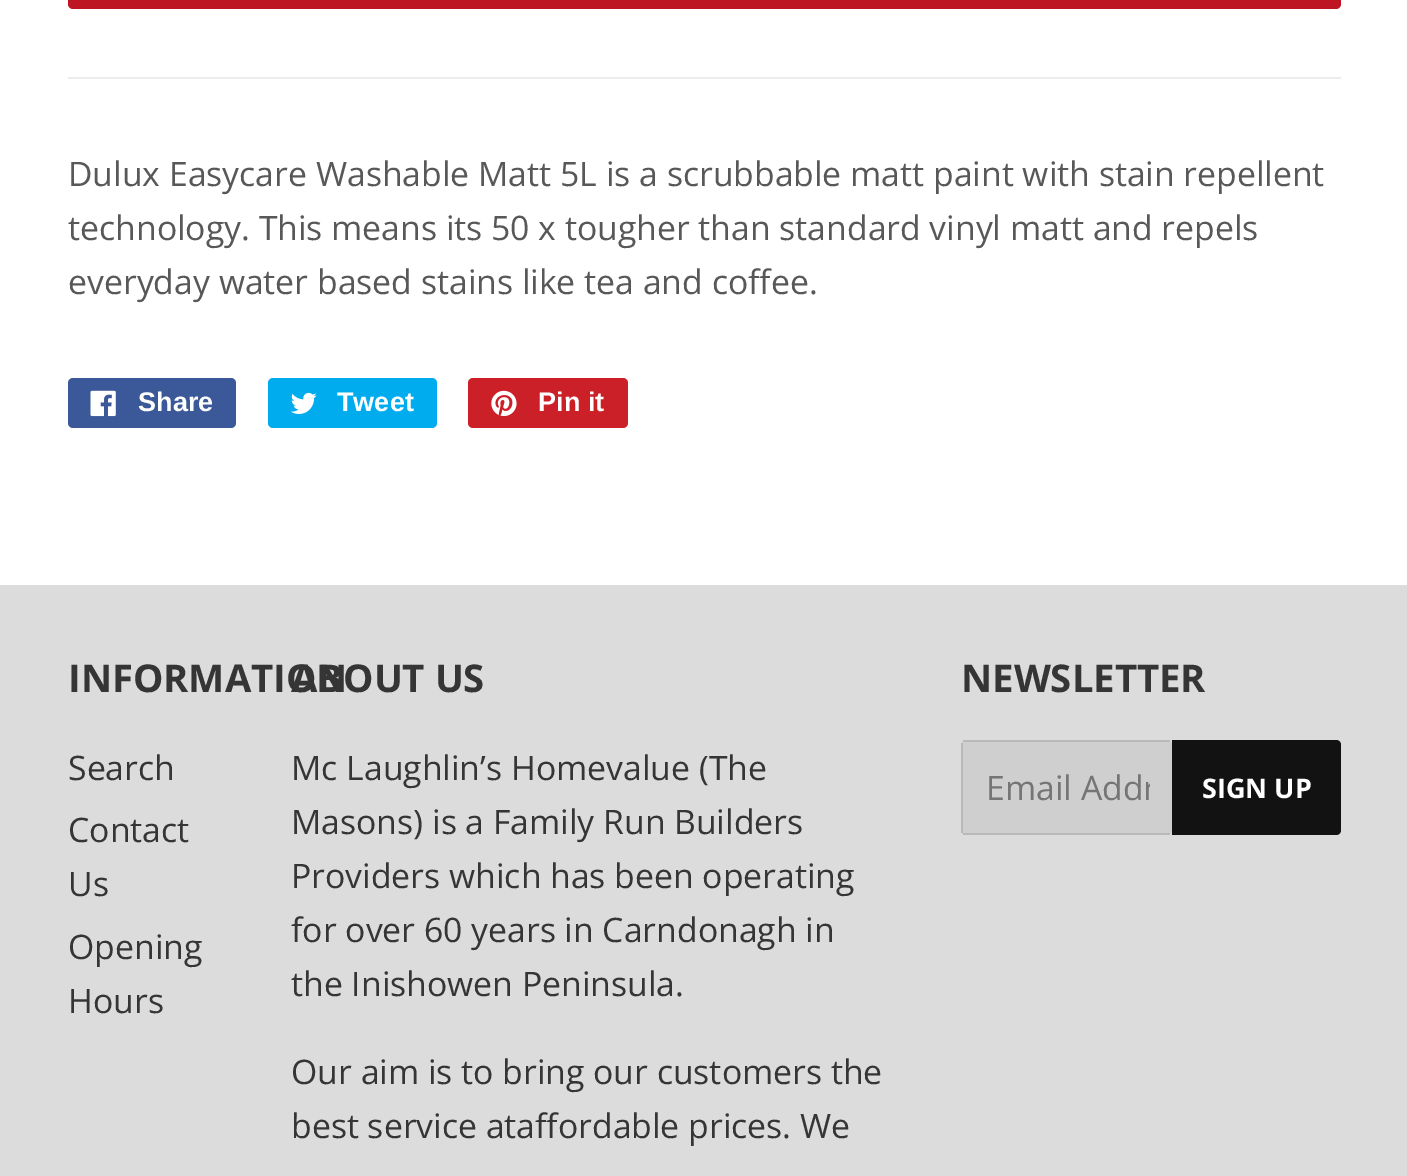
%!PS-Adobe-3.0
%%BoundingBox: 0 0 1407 1176
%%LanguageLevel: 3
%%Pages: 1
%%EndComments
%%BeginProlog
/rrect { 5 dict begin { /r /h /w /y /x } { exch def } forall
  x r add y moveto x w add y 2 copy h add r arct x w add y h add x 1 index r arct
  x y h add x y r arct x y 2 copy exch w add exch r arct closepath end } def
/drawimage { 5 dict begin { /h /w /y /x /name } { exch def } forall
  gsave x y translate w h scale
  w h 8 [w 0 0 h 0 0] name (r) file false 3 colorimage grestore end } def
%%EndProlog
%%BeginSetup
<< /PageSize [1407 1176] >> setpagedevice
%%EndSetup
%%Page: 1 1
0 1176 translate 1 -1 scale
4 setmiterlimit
1 setgray
0 0 1407 1176 rectfill
0.745 0.082 0.133 setrgbcolor
68 -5 1273 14 5 rrect fill
0.925 setgray
68 77 1273 2 rectfill
0.231 0.349 0.596 setrgbcolor
68 378 168 50 5 rrect fill
(images/1.raw) 90 390 26 27 drawimage
0 0.675 0.929 setrgbcolor
268 378 169 50 5 rrect fill
(images/2.raw) 290 392 27 22 drawimage
0.796 0.125 0.153 setrgbcolor
468 378 160 50 5 rrect fill
(images/3.raw) 491 390 26 27 drawimage
0.863 setgray
0 585 1407 591 rectfill
0.812 setgray
961 740 211 95 5 rrect fill
0.725 setgray
963 740 207 2 rectfill
963 833 207 2 rectfill
961 743 2 90 rectfill
0.071 setgray
newpath 1172 740 moveto 1336 740 lineto 1339 740 1341 742 1341 745 curveto 1341 830 lineto 1341 833 1339 835 1336 835 curveto 1172 835 lineto closepath fill
/OpenSans-Regular [33.75 0 0 -33.75 0 0] selectfont
0.345 setgray
68 186 moveto (Dulux Easycare Washable Matt 5L is a scrubbable matt paint with stain repellent) show
68 240 moveto (technology. This means its 50 x tougher than standard vinyl matt and repels) show
68 294 moveto (everyday water based stains like tea and coffee.) show
/LiberationSans-Bold [27 0 0 -27 0 0] selectfont
1 setgray
138 411 moveto (Share) show
337 411 moveto (Tweet) show
538 411 moveto (Pin it) show
/OpenSans-Bold [38.25 0 0 -38.25 0 0] selectfont
0.208 setgray
68 692 moveto (INFORMATION) show
/OpenSans-Regular [33.75 0 0 -33.75 0 0] selectfont
68 780 moveto (Search) show
68 842 moveto (Contact) show
68 896 moveto (Us) show
68 959 moveto (Opening) show
68 1013 moveto (Hours) show
/OpenSans-Bold [38.25 0 0 -38.25 0 0] selectfont
291 692 moveto (ABOUT US) show
/OpenSans-Regular [33.75 0 0 -33.75 0 0] selectfont
291 780 moveto (Mc Laughlin’s Homevalue \(The) show
291 834 moveto (Masons\) is a Family Run Builders) show
291 888 moveto (Providers which has been operating) show
291 942 moveto (for over 60 years in Carndonagh in) show
291 996 moveto (the Inishowen Peninsula.) show
291 1084 moveto (Our aim is to bring our customers the) show
291 1138 moveto (best service ataffordable prices. We) show
/OpenSans-Bold [38.25 0 0 -38.25 0 0] selectfont
961 692 moveto (NEWSLETTER) show
gsave
986 765 164 45 rectclip
/OpenSans-Regular [33.75 0 0 -33.75 0 0] selectfont
0.459 setgray
986 800 moveto (Email Addr) show
grestore
/OpenSans-Bold [27 0 0 -27 0 0] selectfont
1 setgray
1202 798 moveto (SIGN UP) show
showpage
%%EOF
